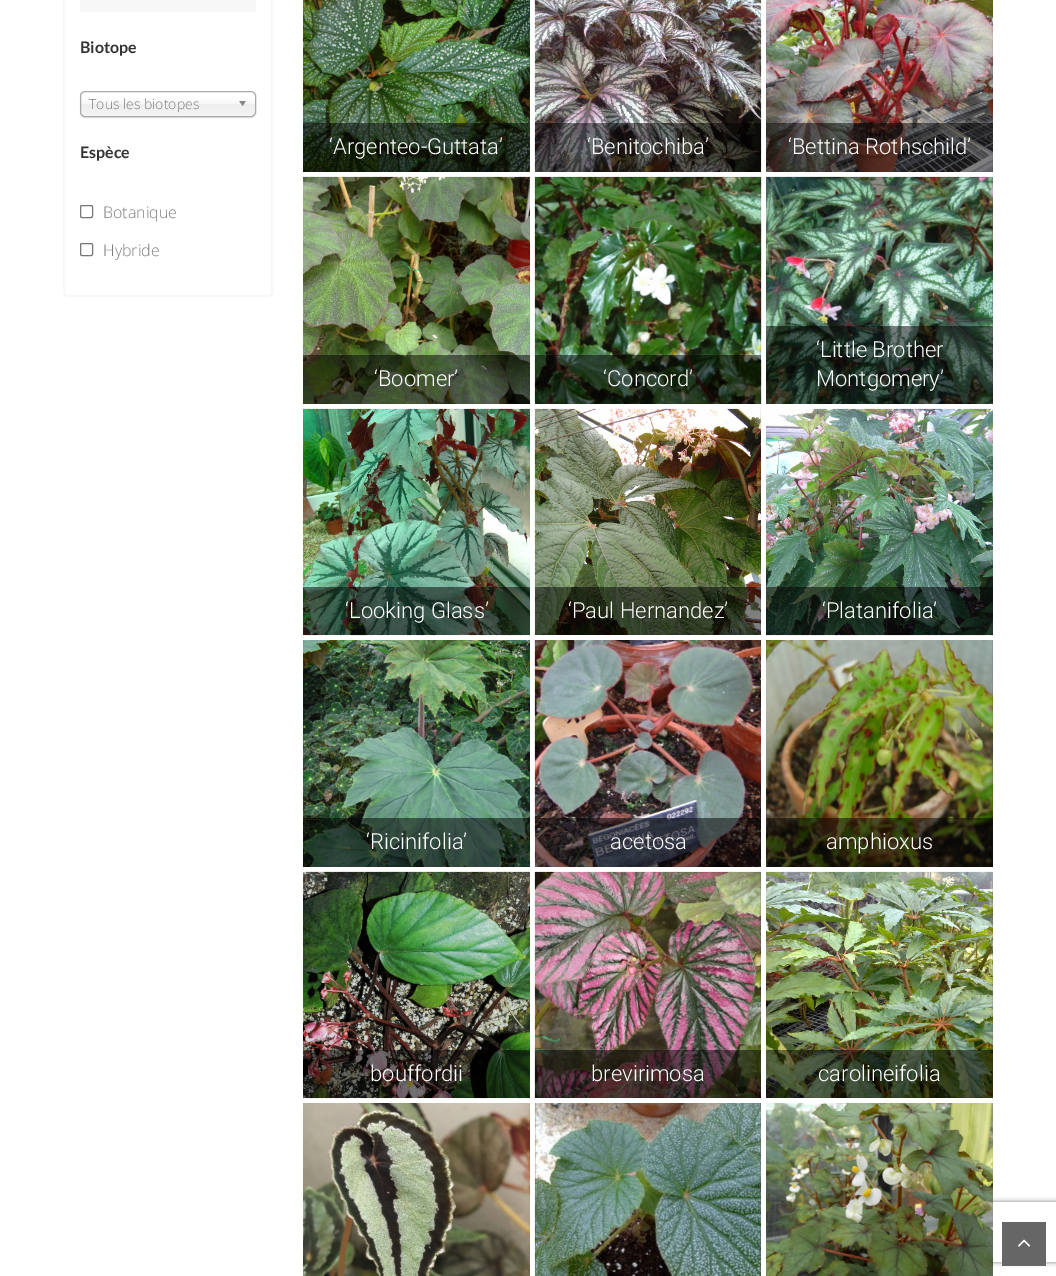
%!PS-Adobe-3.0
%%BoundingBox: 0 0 1056 1276
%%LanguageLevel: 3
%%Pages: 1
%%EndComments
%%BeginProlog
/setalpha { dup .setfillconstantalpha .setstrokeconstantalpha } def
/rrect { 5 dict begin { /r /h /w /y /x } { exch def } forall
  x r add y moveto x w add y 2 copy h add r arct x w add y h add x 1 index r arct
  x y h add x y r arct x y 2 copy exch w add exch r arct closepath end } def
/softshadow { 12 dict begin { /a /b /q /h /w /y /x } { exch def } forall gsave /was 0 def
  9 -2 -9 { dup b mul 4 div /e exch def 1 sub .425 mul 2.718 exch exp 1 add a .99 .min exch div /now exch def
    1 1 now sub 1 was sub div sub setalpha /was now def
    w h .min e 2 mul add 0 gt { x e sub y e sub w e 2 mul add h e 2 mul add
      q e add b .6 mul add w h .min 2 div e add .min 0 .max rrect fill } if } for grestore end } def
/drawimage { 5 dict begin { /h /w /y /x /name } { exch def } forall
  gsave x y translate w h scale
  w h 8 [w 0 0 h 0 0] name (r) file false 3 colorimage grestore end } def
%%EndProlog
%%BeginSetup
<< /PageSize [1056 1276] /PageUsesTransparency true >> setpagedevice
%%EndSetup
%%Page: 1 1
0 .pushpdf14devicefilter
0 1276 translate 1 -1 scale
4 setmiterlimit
1 setgray
0 0 1056 1276 rectfill
0.969 setgray
2 setlinewidth
64 -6 208 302 4 rrect stroke
80 0 176 12 rectfill
0 setgray
80 92 176 26 5 0.5 0.1 softshadow
gsave 81 92 174 24 4 rrect clip newpath
<< /ShadingType 2 /ColorSpace /DeviceRGB /Coords [168 92 168 116] /Extend [true true] /Function << /FunctionType 3 /Domain [0 1] /Functions [<< /FunctionType 2 /Domain [0 1] /C0 [1 1 1] /C1 [1 1 1] /N 1 >> << /FunctionType 2 /Domain [0 1] /C0 [1 1 1] /C1 [0.965 0.965 0.965] /N 1 >> << /FunctionType 2 /Domain [0 1] /C0 [0.965 0.965 0.965] /C1 [0.933 0.933 0.933] /N 1 >> << /FunctionType 2 /Domain [0 1] /C0 [0.933 0.933 0.933] /C1 [0.957 0.957 0.957] /N 1 >>] /Bounds [0.2 0.5 0.52] /Encode [0 1 0 1 0 1 0 1] >> >> shfill grestore
0.667 setgray
1 setlinewidth
80.5 91.5 175 25 4.5 rrect stroke
(images/1.raw) 239 101 7 6 drawimage
0.463 setgray
80.5 205.5 12 12 1.5 rrect stroke
80.5 243.5 12 12 1.5 rrect stroke
(images/2.raw) 303 0 227 172 drawimage
0.5 setalpha
0 setgray
303 123 227 49 rectfill
1 setalpha
(images/3.raw) 534 0 228 172 drawimage
0.5 setalpha
535 123 226 49 rectfill
1 setalpha
(images/4.raw) 766 0 227 172 drawimage
0.5 setalpha
766 123 227 49 rectfill
1 setalpha
(images/5.raw) 303 176 227 228 drawimage
0.5 setalpha
303 355 227 49 rectfill
1 setalpha
(images/6.raw) 534 176 228 228 drawimage
0.5 setalpha
535 355 226 49 rectfill
1 setalpha
(images/7.raw) 766 176 227 228 drawimage
0.5 setalpha
766 326 227 78 rectfill
1 setalpha
(images/8.raw) 303 408 227 228 drawimage
0.5 setalpha
303 587 227 48 rectfill
1 setalpha
(images/9.raw) 534 408 227 227 drawimage
0.5 setalpha
535 587 226 48 rectfill
1 setalpha
(images/10.raw) 766 408 227 228 drawimage
0.5 setalpha
766 587 227 48 rectfill
1 setalpha
(images/11.raw) 303 640 227 227 drawimage
0.5 setalpha
303 818 227 49 rectfill
1 setalpha
(images/12.raw) 534 640 227 227 drawimage
0.5 setalpha
535 818 226 49 rectfill
1 setalpha
(images/13.raw) 766 640 227 227 drawimage
0.5 setalpha
766 818 227 49 rectfill
1 setalpha
(images/14.raw) 303 871 227 228 drawimage
0.5 setalpha
303 1050 227 48 rectfill
1 setalpha
(images/15.raw) 534 871 227 227 drawimage
0.5 setalpha
535 1050 226 48 rectfill
1 setalpha
(images/16.raw) 766 871 227 227 drawimage
0.5 setalpha
766 1050 227 48 rectfill
1 setalpha
(images/17.raw) 303 1103 227 173 drawimage
(images/18.raw) 534 1103 227 173 drawimage
gsave
newpath 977 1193 moveto 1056 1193 lineto 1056 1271 lineto 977 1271 lineto closepath 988 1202 moveto 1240 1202 lineto 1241 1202 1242 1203 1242 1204 curveto 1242 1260 lineto 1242 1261 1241 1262 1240 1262 curveto 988 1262 lineto 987 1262 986 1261 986 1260 curveto 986 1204 lineto 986 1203 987 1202 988 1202 curveto closepath eoclip newpath
0.502 setgray
986 1202 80 60 2 2.5 1 softshadow
grestore
(images/19.raw) 766 1103 227 173 drawimage
0.4 setgray
1002 1222 44 44 rectfill
(images/20.raw) 1018 1239 13 8 drawimage
/Lato-Bold [16 0 0 -16 0 0] selectfont
0.2 setgray
80 53 moveto (Biotope) show
/OpenSans-Light [14 0 0 -14 0 0] selectfont
0.49 setgray
89 109 moveto (Tous les biotopes) show
/Lato-Bold [16 0 0 -16 0 0] selectfont
0.2 setgray
80 158 moveto (Espèce) show
/OpenSans-Light [16 0 0 -16 0 0] selectfont
0.49 setgray
103 218 moveto (Botanique) show
103 256 moveto (Hybride) show
/Roboto-Light [22 0 0 -22 0 0] selectfont
1 setgray
329 154 moveto (‘Argenteo-Guttata’) show
587 154 moveto (‘Benitochiba’) show
788 154 moveto (‘Bettina Rothschild’) show
374 386 moveto (‘Boomer’) show
603 386 moveto (‘Concord’) show
816 357 moveto (‘Little Brother) show
816 386 moveto (Montgomery’) show
345 618 moveto (‘Looking Glass’) show
568 618 moveto (‘Paul Hernandez’) show
822 618 moveto (‘Platanifolia’) show
366 849 moveto (‘Ricinifolia’) show
610 849 moveto (acetosa) show
826 849 moveto (amphioxus) show
370 1081 moveto (bouffordii) show
591 1081 moveto (brevirimosa) show
818 1081 moveto (carolineifolia) show
.poppdf14devicefilter showpage
%%EOF
